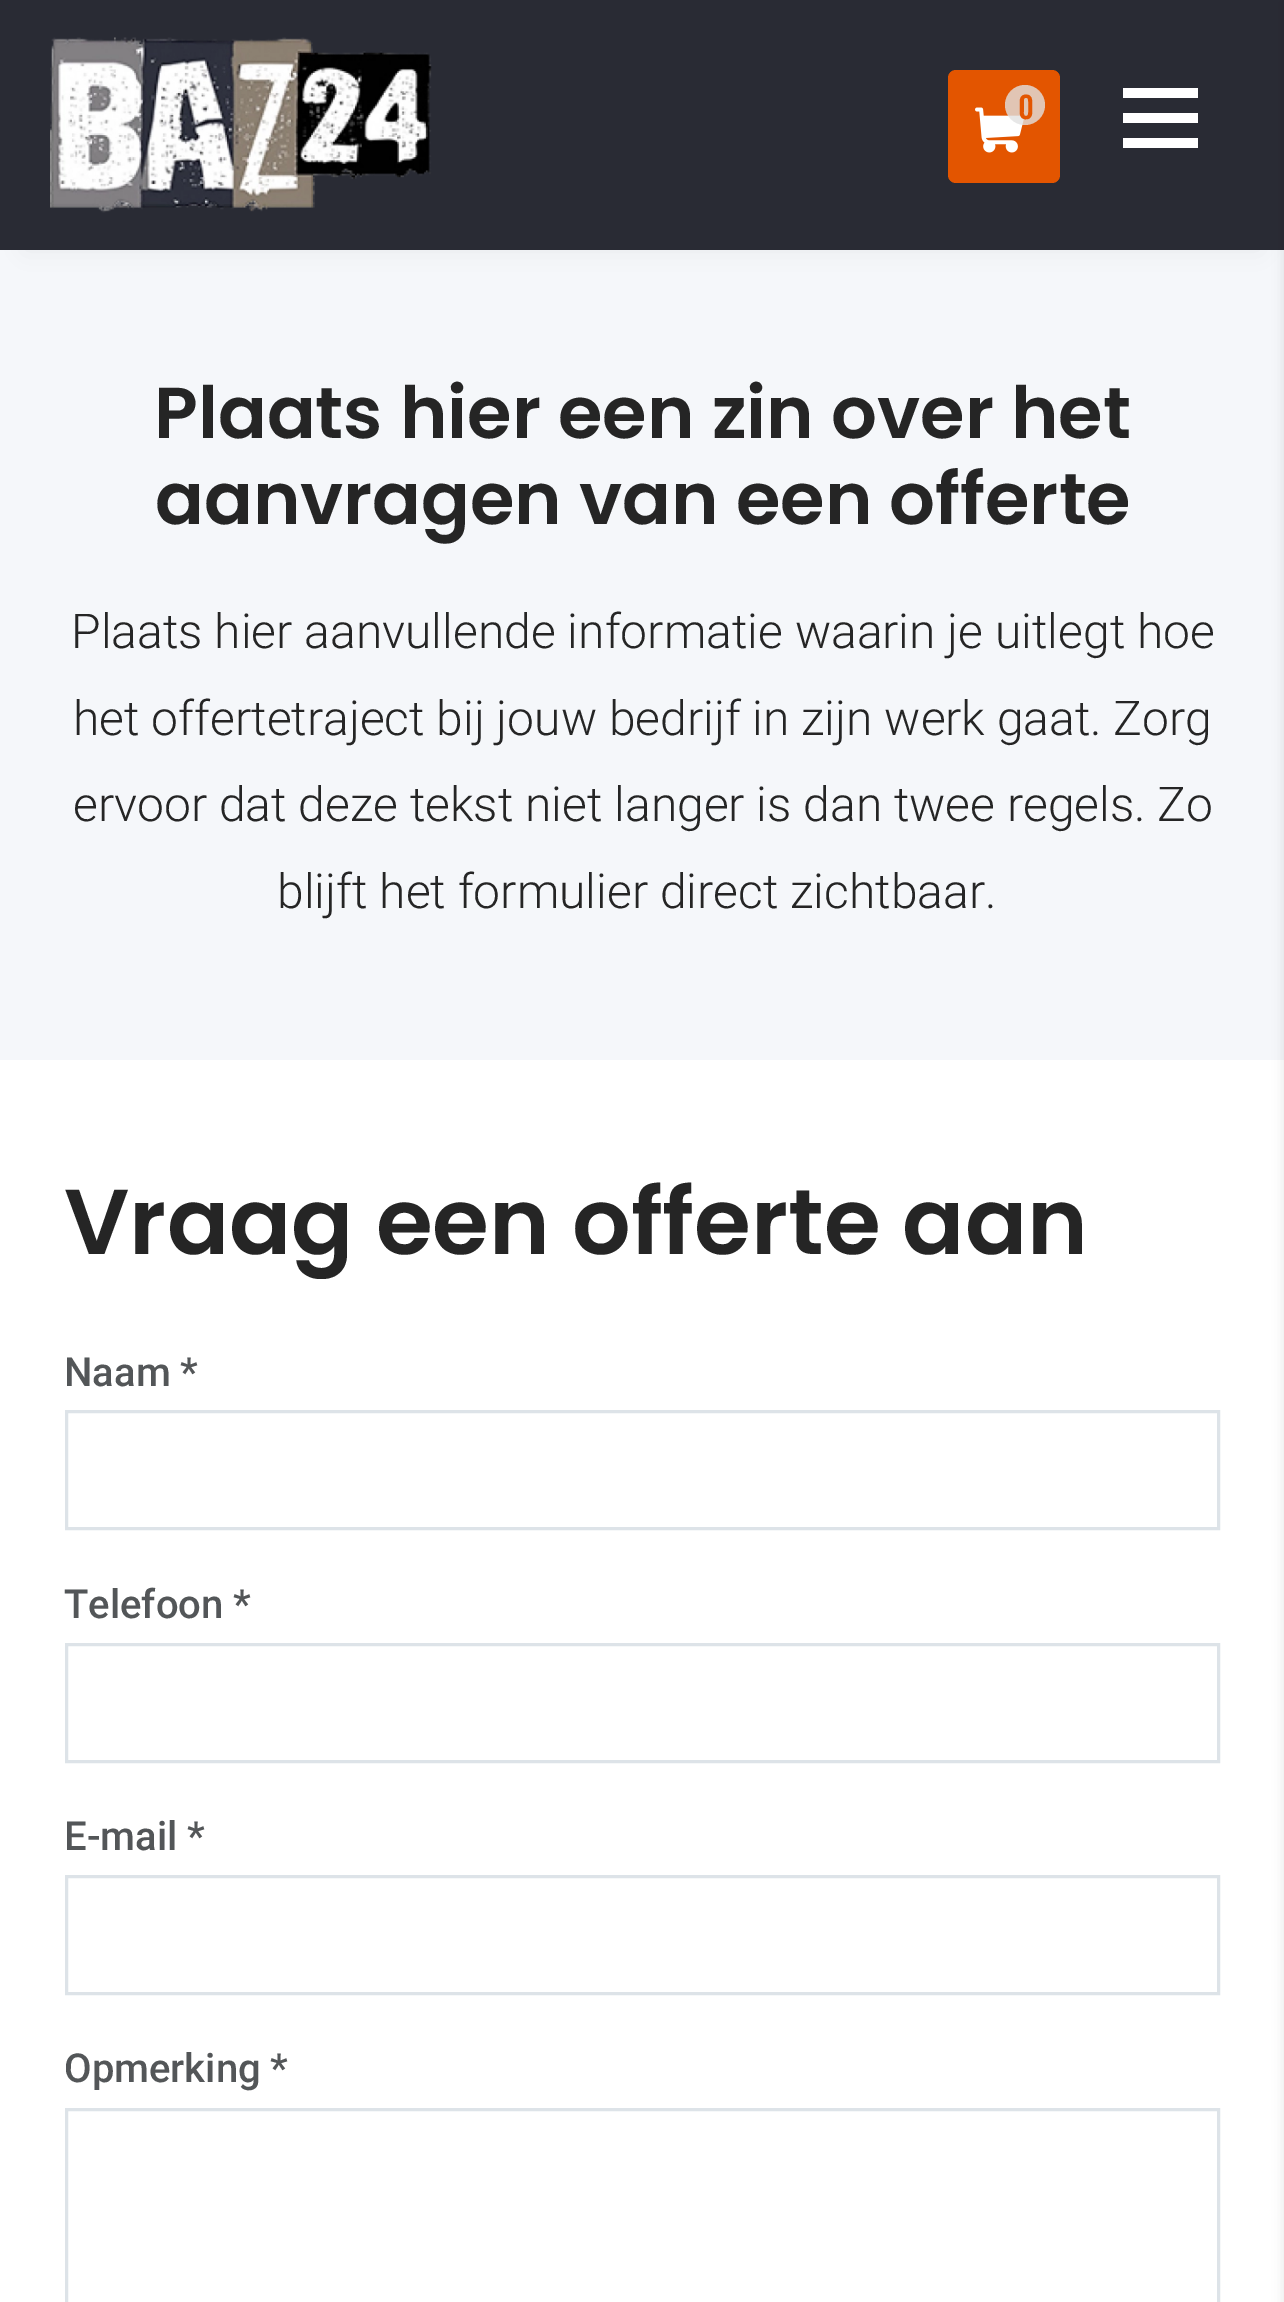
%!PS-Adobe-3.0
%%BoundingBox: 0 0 1284 2302
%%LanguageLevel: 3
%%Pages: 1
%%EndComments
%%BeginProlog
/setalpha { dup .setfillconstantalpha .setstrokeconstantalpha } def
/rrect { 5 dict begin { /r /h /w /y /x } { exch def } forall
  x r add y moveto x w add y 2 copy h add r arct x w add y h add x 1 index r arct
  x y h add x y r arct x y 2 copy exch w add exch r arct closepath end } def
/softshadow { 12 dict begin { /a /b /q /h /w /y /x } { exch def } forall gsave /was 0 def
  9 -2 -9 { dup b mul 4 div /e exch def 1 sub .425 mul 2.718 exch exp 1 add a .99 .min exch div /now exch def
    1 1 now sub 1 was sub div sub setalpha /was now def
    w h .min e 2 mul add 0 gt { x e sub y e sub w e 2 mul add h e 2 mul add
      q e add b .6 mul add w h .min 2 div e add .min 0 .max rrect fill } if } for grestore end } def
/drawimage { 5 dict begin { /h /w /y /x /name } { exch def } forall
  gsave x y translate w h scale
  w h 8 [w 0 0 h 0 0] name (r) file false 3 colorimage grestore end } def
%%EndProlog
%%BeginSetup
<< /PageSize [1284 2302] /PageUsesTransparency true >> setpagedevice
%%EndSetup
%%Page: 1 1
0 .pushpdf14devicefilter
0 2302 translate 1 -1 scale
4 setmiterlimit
0.961 0.969 0.98 setrgbcolor
0 0 1284 2302 rectfill
0 setgray
25 50 1235 200 0 12.5 0.05 softshadow
0.161 0.169 0.204 setrgbcolor
0 0 1284 250 rectfill
(images/1.raw) 50 37 382 176 drawimage
0.89 0.333 0 setrgbcolor
948 70 112 113 8 rrect fill
(images/2.raw) 975 107 50 46 drawimage
0.8 setalpha
0.882 setgray
newpath 1025 105 20 0 360 arc closepath fill
1 setalpha
1 setgray
1123 113 75 10 rectfill
1123 88 75 10 rectfill
1123 138 75 10 rectfill
0 1060 1284 1242 rectfill
0 setgray
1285 3 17 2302 0 6 0.12 softshadow
0.867 0.89 0.91 setrgbcolor
3 setlinewidth
66.5 1411.5 1152 117 rectstroke
66.5 1644.5 1152 117 rectstroke
66.5 1876.5 1152 117 rectstroke
66.5 2109.5 1152 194 rectstroke
/Oswald-Medium [30 0 0 -30 0 0] selectfont
0.89 0.333 0 setrgbcolor
1018 119 moveto 2 0 (0) ashow
/Poppins-SemiBold [72 0 0 -72 0 0] selectfont
0.145 setgray
154 438 moveto (Plaats hier een zin over het) show
155 524 moveto (aanvragen van een offerte) show
/Roboto-Light [48 0 0 -48 0 0] selectfont
71 648 moveto (Plaats hier aanvullende informatie waarin je uitlegt hoe) show
73 735 moveto (het offertetraject bij jouw bedrijf in zijn werk gaat. Zorg) show
73 821 moveto (ervoor dat deze tekst niet langer is dan twee regels. Zo) show
277 908 moveto (blijft het formulier direct zichtbaar.) show
/Poppins-SemiBold [92 0 0 -92 0 0] selectfont
64 1254 moveto (Vraag een offerte aan) show
/Roboto-Medium [40 0 0 -40 0 0] selectfont
0.325 0.337 0.345 setrgbcolor
64 1386 moveto (Naam *) show
64 1618 moveto (Telefoon *) show
64 1850 moveto (E-mail *) show
64 2082 moveto (Opmerking *) show
.poppdf14devicefilter showpage
%%EOF
